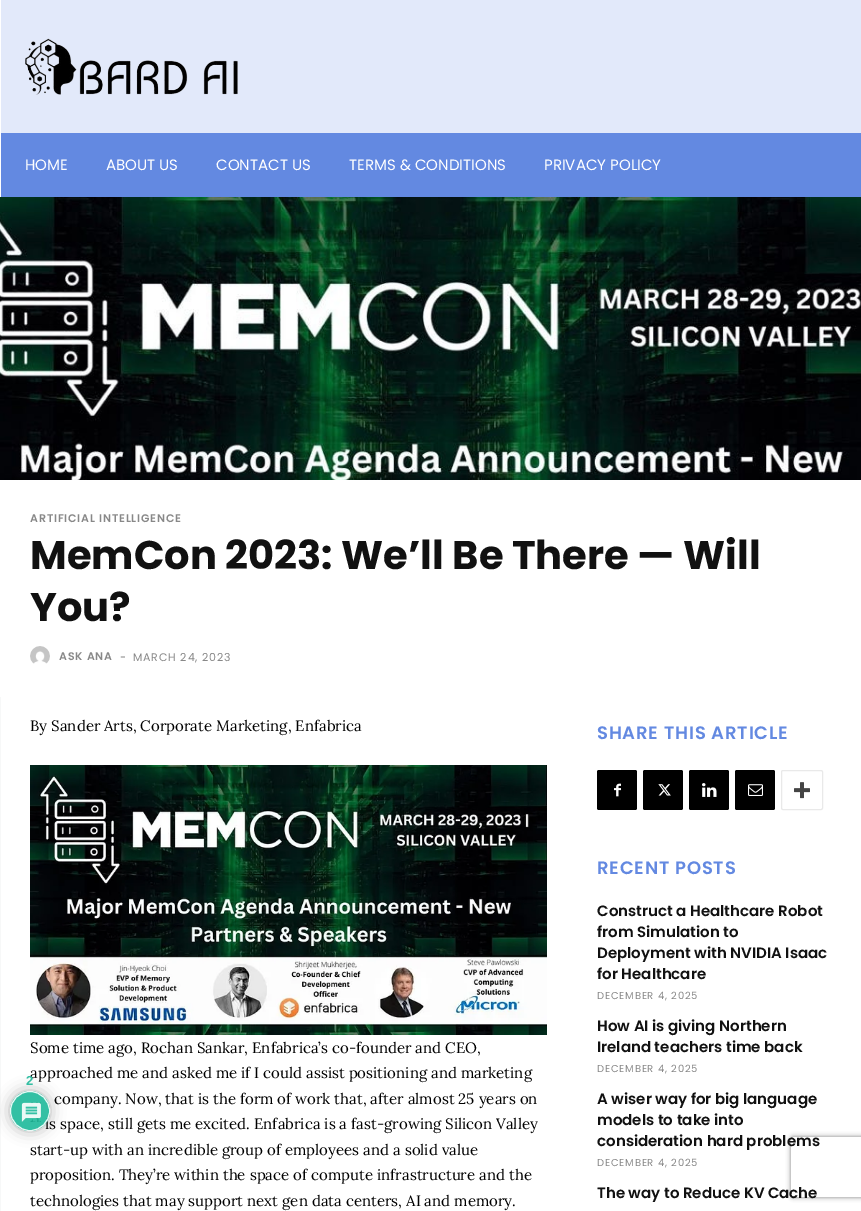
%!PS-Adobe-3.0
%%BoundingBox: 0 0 861 1211
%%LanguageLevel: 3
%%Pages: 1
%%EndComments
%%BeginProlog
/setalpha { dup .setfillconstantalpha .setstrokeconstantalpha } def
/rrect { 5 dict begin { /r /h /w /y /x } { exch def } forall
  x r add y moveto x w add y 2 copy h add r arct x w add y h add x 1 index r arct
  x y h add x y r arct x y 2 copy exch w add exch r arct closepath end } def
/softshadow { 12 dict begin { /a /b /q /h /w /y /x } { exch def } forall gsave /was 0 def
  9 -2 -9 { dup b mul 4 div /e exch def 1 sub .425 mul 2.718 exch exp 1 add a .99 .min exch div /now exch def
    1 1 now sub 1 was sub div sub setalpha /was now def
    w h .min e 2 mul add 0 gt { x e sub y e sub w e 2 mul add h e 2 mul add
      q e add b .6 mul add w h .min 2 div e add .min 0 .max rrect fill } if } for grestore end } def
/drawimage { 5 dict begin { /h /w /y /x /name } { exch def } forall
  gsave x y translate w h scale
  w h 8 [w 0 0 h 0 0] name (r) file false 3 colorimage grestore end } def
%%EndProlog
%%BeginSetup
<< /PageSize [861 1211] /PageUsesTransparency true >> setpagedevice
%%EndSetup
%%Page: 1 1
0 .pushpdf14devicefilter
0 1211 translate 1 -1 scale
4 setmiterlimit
0.969 0.973 0.973 setrgbcolor
0 0 861 1211 rectfill
1 setgray
0 0 1 197 rectfill
0.886 0.914 0.98 setrgbcolor
1 0 860 133 rectfill
(images/1.raw) 25 38 213 57 drawimage
0.388 0.537 0.882 setrgbcolor
1 133 860 64 rectfill
(images/2.raw) 0 197 861 283 drawimage
1 setgray
0 480 861 217 rectfill
(images/3.raw) 30 646 20 18 drawimage
1 697 860 514 rectfill
(images/4.raw) 30 765 517 270 drawimage
0 setgray
597 770 40 40 2 rrect fill
(images/5.raw) 614 783 7 14 drawimage
643 770 40 40 2 rrect fill
(images/6.raw) 658 784 13 12 drawimage
689 770 40 40 2 rrect fill
(images/7.raw) 702 783 15 14 drawimage
735 770 40 40 2 rrect fill
(images/8.raw) 748 784 15 12 drawimage
0.914 setgray
781.5 770.5 41 39 1.5 rrect stroke
(images/9.raw) 794 782 16 17 drawimage
gsave
newpath 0 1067 moveto 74 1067 lineto 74 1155 lineto 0 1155 lineto closepath 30 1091 moveto 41 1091 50 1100 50 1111 curveto 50 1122 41 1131 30 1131 curveto 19 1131 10 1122 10 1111 curveto 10 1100 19 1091 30 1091 curveto closepath eoclip newpath
0.667 setgray
10 1091 40 40 20 7.5 0.9 softshadow
grestore
gsave
newpath 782 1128 moveto 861 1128 lineto 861 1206 lineto 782 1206 lineto closepath 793 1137 moveto 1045 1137 lineto 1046 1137 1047 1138 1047 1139 curveto 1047 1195 lineto 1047 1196 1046 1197 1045 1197 curveto 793 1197 lineto 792 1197 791 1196 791 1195 curveto 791 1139 lineto 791 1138 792 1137 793 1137 curveto closepath eoclip newpath
0.502 setgray
791 1137 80 60 2 2.5 1 softshadow
grestore
/Poppins-Regular [15 0 0 -15 0 0] selectfont
1 setgray
25 170 moveto (HOME) show
106 170 moveto (ABOUT US) show
216 170 moveto (CONTACT US) show
349 170 moveto (TERMS & CONDITIONS) show
544 170 moveto (PRIVACY POLICY) show
/Poppins-SemiBold [11 0 0 -11 0 0] selectfont
0.533 setgray
30 522 moveto 0.8 0 (ARTIFICIAL INTELLIGENCE) ashow
/Poppins-Bold [40 0 0 -40 0 0] selectfont
0.067 setgray
30 569 moveto (MemCon 2023: We’ll Be There — Will) show
30 621 moveto (You?) show
/Poppins-SemiBold [11 0 0 -11 0 0] selectfont
0.533 setgray
59 660 moveto 0.8 0 (ASK ANA) ashow
/Poppins-Regular [11 0 0 -11 0 0] selectfont
120 661 moveto 0.8 0 (-) ashow
133 661 moveto 0.8 0 (MARCH 24, 2023) ashow
/Lora-Regular [15 0 0 -15 0 0] selectfont
0 setgray
30 731 moveto (By Sander Arts, Corporate Marketing, Enfabrica) show
30 1053 moveto (Some time ago, Rochan Sankar, Enfabrica’s co-founder and CEO,) show
30 1078 moveto (approached me and asked me if I could assist positioning and marketing) show
54 1104 moveto (company. Now, that is the form of work that, after almost 25 years on) show
45 1129 moveto (is space, still gets me excited. Enfabrica is a fast-growing Silicon Valley) show
30 1155 moveto (start-up with an incredible group of employees and a solid value) show
30 1180 moveto (proposition. They’re within the space of compute infrastructure and the) show
30 1206 moveto (technologies that may support next gen data centers, AI and memory.) show
/Poppins-SemiBold [18 0 0 -18 0 0] selectfont
0.388 0.537 0.882 setrgbcolor
597 739 moveto 0.8 0 (SHARE THIS ARTICLE) ashow
597 874 moveto 0.8 0 (RECENT POSTS) ashow
/Poppins-SemiBold [15 0 0 -15 0 0] selectfont
0.067 setgray
597 916 moveto (Construct a Healthcare Robot) show
597 937 moveto (from Simulation to) show
597 958 moveto (Deployment with NVIDIA Isaac) show
597 979 moveto (for Healthcare) show
/Poppins-Regular [10 0 0 -10 0 0] selectfont
0.533 setgray
597 999 moveto 0.8 0 (DECEMBER 4, 2025) ashow
/Poppins-SemiBold [15 0 0 -15 0 0] selectfont
0.067 setgray
597 1031 moveto (How AI is giving Northern) show
597 1052 moveto (Ireland teachers time back) show
/Poppins-Regular [10 0 0 -10 0 0] selectfont
0.533 setgray
597 1072 moveto 0.8 0 (DECEMBER 4, 2025) ashow
/Poppins-SemiBold [15 0 0 -15 0 0] selectfont
0.067 setgray
597 1104 moveto (A wiser way for big language) show
597 1125 moveto (models to take into) show
597 1146 moveto (consideration hard problems) show
/Poppins-Regular [10 0 0 -10 0 0] selectfont
0.533 setgray
597 1166 moveto 0.8 0 (DECEMBER 4, 2025) ashow
/Poppins-SemiBold [15 0 0 -15 0 0] selectfont
0.067 setgray
597 1198 moveto (The way to Reduce KV Cache) show
0.9 setalpha
0.114 0.725 0.604 setrgbcolor
newpath 30 1111 20 0 360 arc closepath fill
1 setgray
newpath 30 1111 19.5 0 360 arc closepath stroke
1 setalpha
(images/10.raw) 21 1102 20 20 drawimage
/LiberationSans-Bold [13 0 0 -13 0 0] selectfont
0.196 0.745 0.635 setrgbcolor
26 1085 moveto (2) show
.poppdf14devicefilter showpage
%%EOF
